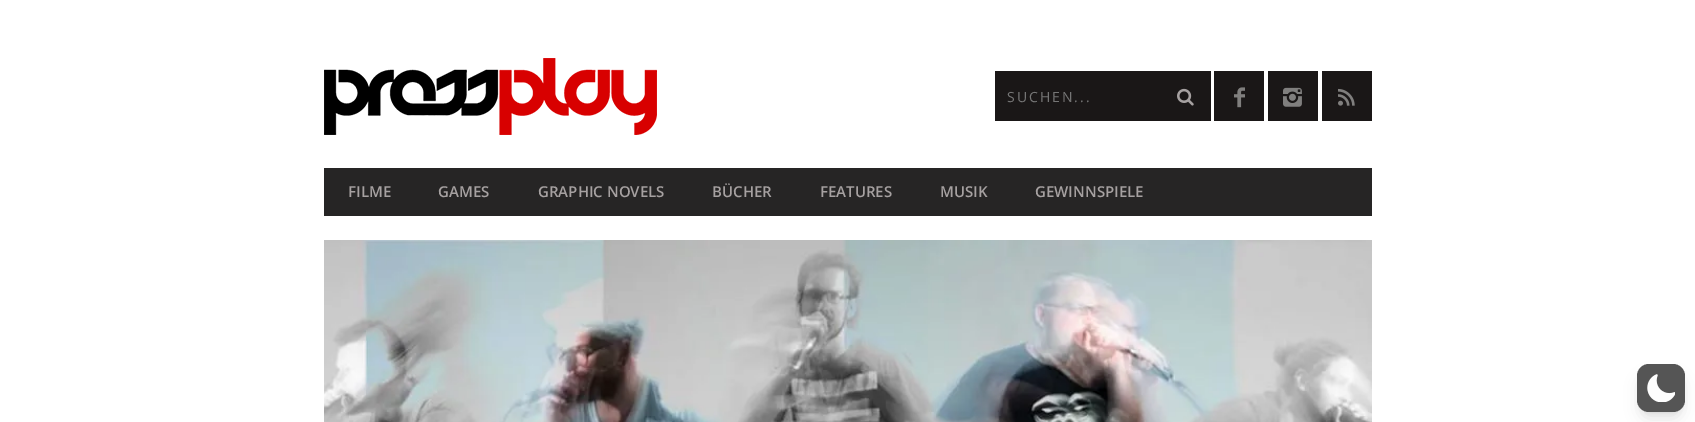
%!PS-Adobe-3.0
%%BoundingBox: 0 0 1695 422
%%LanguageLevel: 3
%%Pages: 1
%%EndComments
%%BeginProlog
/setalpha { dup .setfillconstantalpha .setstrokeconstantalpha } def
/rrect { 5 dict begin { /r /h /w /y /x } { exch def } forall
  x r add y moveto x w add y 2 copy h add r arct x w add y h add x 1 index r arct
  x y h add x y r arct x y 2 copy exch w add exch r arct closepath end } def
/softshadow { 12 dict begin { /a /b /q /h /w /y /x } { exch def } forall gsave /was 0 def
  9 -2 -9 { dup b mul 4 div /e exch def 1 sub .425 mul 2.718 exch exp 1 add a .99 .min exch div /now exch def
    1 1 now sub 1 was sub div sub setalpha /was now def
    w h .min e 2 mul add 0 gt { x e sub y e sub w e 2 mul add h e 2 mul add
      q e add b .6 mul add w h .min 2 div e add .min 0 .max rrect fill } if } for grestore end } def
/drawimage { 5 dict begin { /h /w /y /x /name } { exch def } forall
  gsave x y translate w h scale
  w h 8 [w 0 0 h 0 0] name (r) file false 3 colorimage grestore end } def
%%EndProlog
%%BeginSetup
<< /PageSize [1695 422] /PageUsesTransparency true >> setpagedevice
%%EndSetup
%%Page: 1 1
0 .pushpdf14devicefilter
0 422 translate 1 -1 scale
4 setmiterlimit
1 setgray
0 0 1695 422 rectfill
(images/1.raw) 324 58 333 77 drawimage
0.102 0.09 0.09 setrgbcolor
995 71 216 50 rectfill
(images/2.raw) 1177 88 17 18 drawimage
1214 71 50 50 rectfill
(images/3.raw) 1234 87 11 21 drawimage
1268 71 50 50 rectfill
(images/4.raw) 1283 87 19 20 drawimage
1322 71 50 50 rectfill
(images/5.raw) 1338 88 17 18 drawimage
0.149 0.145 0.145 setrgbcolor
324 168 1048 48 rectfill
(images/6.raw) 324 240 1048 182 drawimage
0 setgray
1641 372 40 40 8 3 0.1 softshadow
1640 377 42 42 9 7.5 0.1 softshadow
0.333 setgray
1637 364 48 48 12 rrect fill
(images/7.raw) 1647 374 28 28 drawimage
/OpenSans-Regular [14 0 0 -14 0 0] selectfont
0.459 setgray
1007 102 moveto 2 0 (SUCHEN...) ashow
/OpenSans-SemiBold [15 0 0 -15 0 0] selectfont
0.651 0.631 0.631 setrgbcolor
348 197 moveto (FILME) show
438 197 moveto (GAMES) show
538 197 moveto (GRAPHIC NOVELS) show
712 197 moveto (BÜCHER) show
820 197 moveto (FEATURES) show
940 197 moveto (MUSIK) show
1035 197 moveto (GEWINNSPIELE) show
.poppdf14devicefilter showpage
%%EOF
